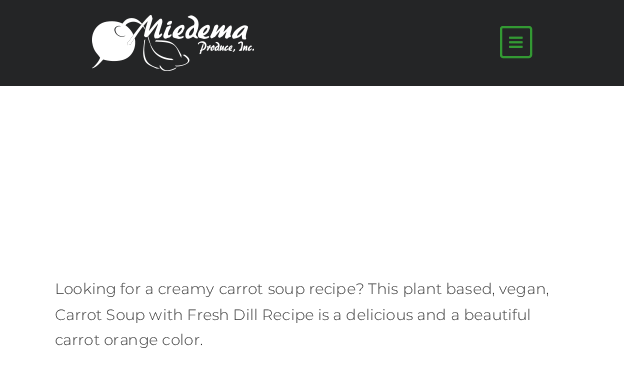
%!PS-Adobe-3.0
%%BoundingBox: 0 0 624 377
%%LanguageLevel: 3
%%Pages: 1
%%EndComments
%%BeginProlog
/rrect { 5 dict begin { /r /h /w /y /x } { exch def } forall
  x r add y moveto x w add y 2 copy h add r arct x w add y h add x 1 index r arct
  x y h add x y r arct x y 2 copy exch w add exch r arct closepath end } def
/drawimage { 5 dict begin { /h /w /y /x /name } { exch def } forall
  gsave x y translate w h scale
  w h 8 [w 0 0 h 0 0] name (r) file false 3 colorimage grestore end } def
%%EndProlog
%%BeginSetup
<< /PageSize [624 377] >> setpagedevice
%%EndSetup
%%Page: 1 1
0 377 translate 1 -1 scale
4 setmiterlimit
0.141 0.145 0.149 setrgbcolor
0 0 624 377 rectfill
(images/1.raw) 92 15 162 56 drawimage
0.2 0.6 0.2 setrgbcolor
2 setlinewidth
501 27 30 30 2 rrect stroke
(images/2.raw) 509 36 14 12 drawimage
1 setgray
0 86 624 291 rectfill
/Montserrat-Light [15 0 0 -15 0 0] selectfont
0.2 setgray
55 294 moveto 0.15 0 (Looking for a creamy carrot soup recipe? This plant based, vegan,) ashow
55 320 moveto 0.15 0 (Carrot Soup with Fresh Dill Recipe is a delicious and a beautiful) ashow
55 345 moveto 0.15 0 (carrot orange color.) ashow
showpage
%%EOF
